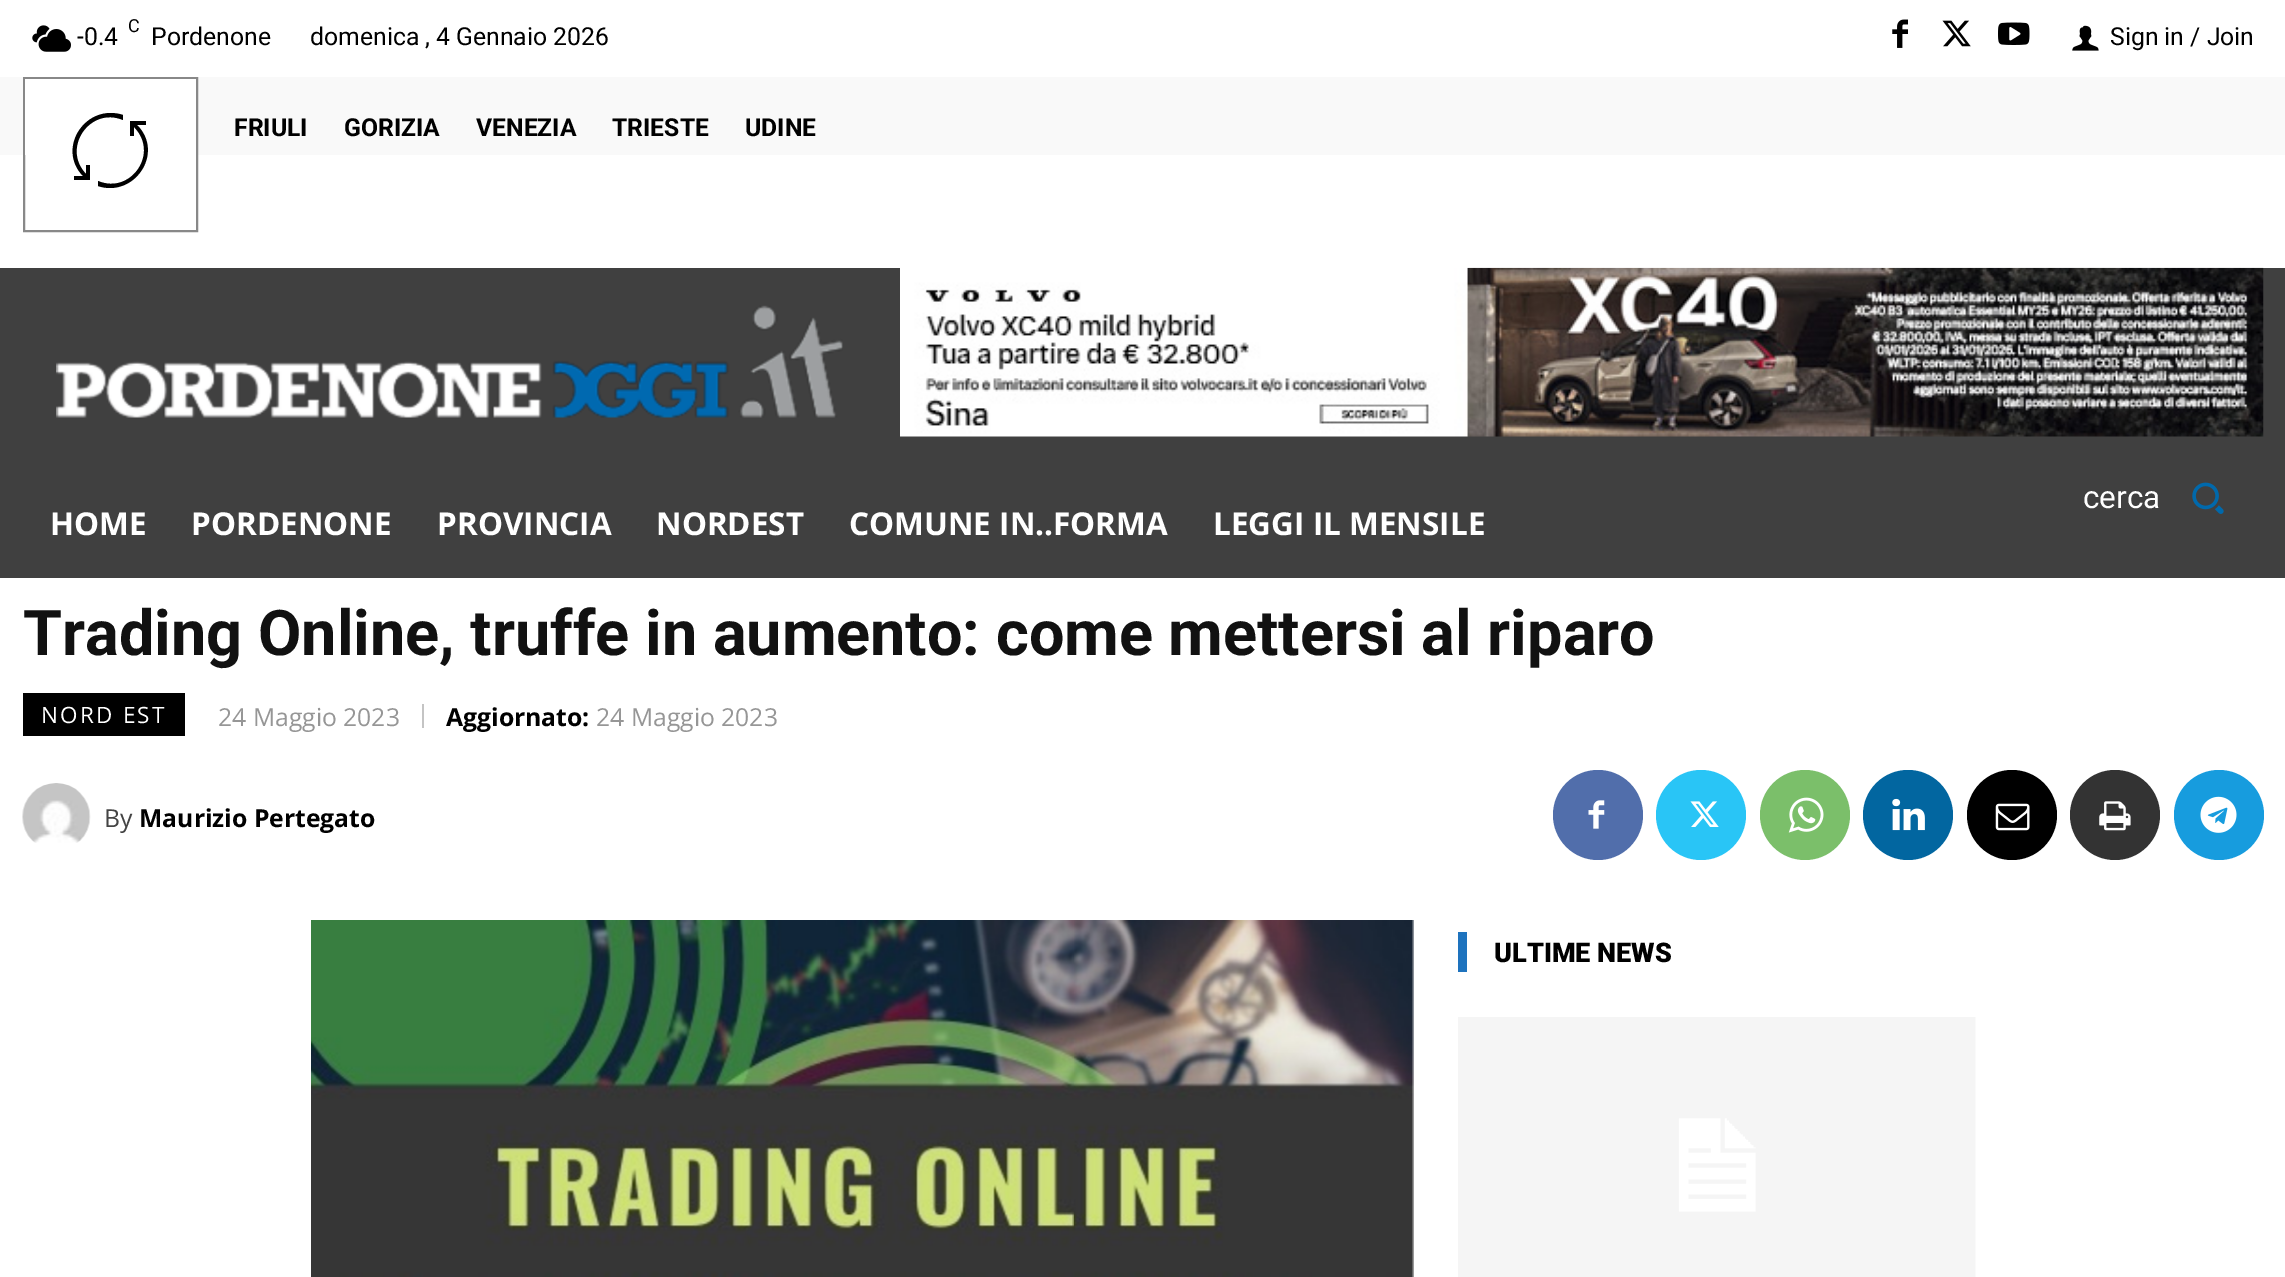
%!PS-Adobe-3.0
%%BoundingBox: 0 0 2285 1277
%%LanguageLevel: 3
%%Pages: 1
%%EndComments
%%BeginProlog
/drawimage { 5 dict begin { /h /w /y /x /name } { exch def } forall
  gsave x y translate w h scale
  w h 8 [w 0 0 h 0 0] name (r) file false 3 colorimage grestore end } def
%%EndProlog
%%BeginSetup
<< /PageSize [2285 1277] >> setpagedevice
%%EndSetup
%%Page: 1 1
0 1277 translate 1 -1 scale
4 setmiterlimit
1 setgray
0 0 2285 1277 rectfill
(images/1.raw) 32 25 39 27 drawimage
(images/2.raw) 1892 19 16 29 drawimage
(images/3.raw) 1942 20 29 27 drawimage
(images/4.raw) 1998 22 32 23 drawimage
(images/5.raw) 2072 25 27 26 drawimage
0.976 setgray
0 77 2285 78 rectfill
0.533 setgray
2 setlinewidth
24 78 173 153 rectstroke
1 setgray
25 79 171 76 rectfill
0 setgray
newpath 146 125 moveto 146 121 lineto 130 121 lineto 130 136 lineto 134 136 lineto 134 127 lineto 160 153 131 195 98 181 curveto 98 186 lineto 134 198 165 153 137 125 curveto closepath 86 174 moveto 61 148 90 106 123 120 curveto 123 115 lineto 86 103 56 148 83 176 curveto 74 176 lineto 74 180 lineto 90 180 lineto 90 165 lineto 86 165 lineto closepath fill
0.251 setgray
0 268 2285 310 rectfill
(images/6.raw) 900 267 1364 170 drawimage
(images/7.raw) 56 305 787 113 drawimage
(images/8.raw) 2192 482 32 32 drawimage
0 setgray
23 693 162 43 rectfill
0.769 setgray
422 704 2 24 rectfill
(images/9.raw) 22 783 69 60 drawimage
0.318 0.431 0.671 setrgbcolor
newpath 1598 815 45 0 360 arc closepath fill
(images/10.raw) 1588 800 17 29 drawimage
0.161 0.773 0.965 setrgbcolor
newpath 1701 815 45 0 360 arc closepath fill
(images/11.raw) 1690 801 29 26 drawimage
0.482 0.749 0.416 setrgbcolor
newpath 1805 815 45 0 360 arc closepath fill
(images/12.raw) 1788 797 36 36 drawimage
0.008 0.4 0.627 setrgbcolor
newpath 1908 815 45 0 360 arc closepath fill
(images/13.raw) 1892 798 33 33 drawimage
0 setgray
newpath 2012 815 45 0 360 arc closepath fill
(images/14.raw) 1995 803 35 28 drawimage
0.2 setgray
newpath 2115 815 45 0 360 arc closepath fill
(images/15.raw) 2099 801 32 30 drawimage
0.09 0.612 0.871 setrgbcolor
newpath 2219 815 45 0 360 arc closepath fill
(images/16.raw) 2200 796 37 37 drawimage
(images/17.raw) 311 920 1103 357 drawimage
0.118 0.451 0.745 setrgbcolor
1458 932 9 40 rectfill
(images/18.raw) 1458 1017 518 260 drawimage
/Roboto-Regular [24.75 0 0 -24.75 0 0] selectfont
0 setgray
77 45 moveto (-0.4) show
/Roboto-Regular [18 0 0 -18 0 0] selectfont
128 32 moveto (C) show
/Roboto-Regular [24.75 0 0 -24.75 0 0] selectfont
151 45 moveto (Pordenone) show
310 45 moveto (domenica , 4 Gennaio 2026) show
2110 45 moveto (Sign in / Join) show
/Roboto-Bold [24.75 0 0 -24.75 0 0] selectfont
234 136 moveto (FRIULI) show
344 136 moveto (GORIZIA) show
476 136 moveto (VENEZIA) show
612 136 moveto (TRIESTE) show
745 136 moveto (UDINE) show
/Roboto-Regular [31.5 0 0 -31.5 0 0] selectfont
1 setgray
2083 508 moveto (cerca) show
/OpenSans-Bold [31.5 0 0 -31.5 0 0] selectfont
50 535 moveto (HOME) show
191 535 moveto (PORDENONE) show
437 535 moveto (PROVINCIA) show
656 535 moveto (NORDEST) show
849 535 moveto (COMUNE IN..FORMA) show
1213 535 moveto (LEGGI IL MENSILE) show
/Roboto-Bold [63 0 0 -63 0 0] selectfont
0.067 setgray
23 655 moveto (Trading Online, truffe in aumento: come mettersi al riparo) show
/OpenSans-Regular [22.5 0 0 -22.5 0 0] selectfont
1 setgray
41 723 moveto 2.25 0 (NORD EST) ashow
/OpenSans-Regular [24.75 0 0 -24.75 0 0] selectfont
0.588 setgray
218 726 moveto (24 Maggio 2023) show
/OpenSans-Bold [24.75 0 0 -24.75 0 0] selectfont
0 setgray
446 726 moveto (Aggiornato:) show
/OpenSans-Regular [24.75 0 0 -24.75 0 0] selectfont
0.588 setgray
596 726 moveto (24 Maggio 2023) show
0.267 setgray
104 827 moveto (By) show
/OpenSans-Bold [24.75 0 0 -24.75 0 0] selectfont
0 setgray
139 827 moveto (Maurizio Pertegato) show
/Roboto-Black [27 0 0 -27 0 0] selectfont
1494 962 moveto (ULTIME NEWS) show
showpage
%%EOF
